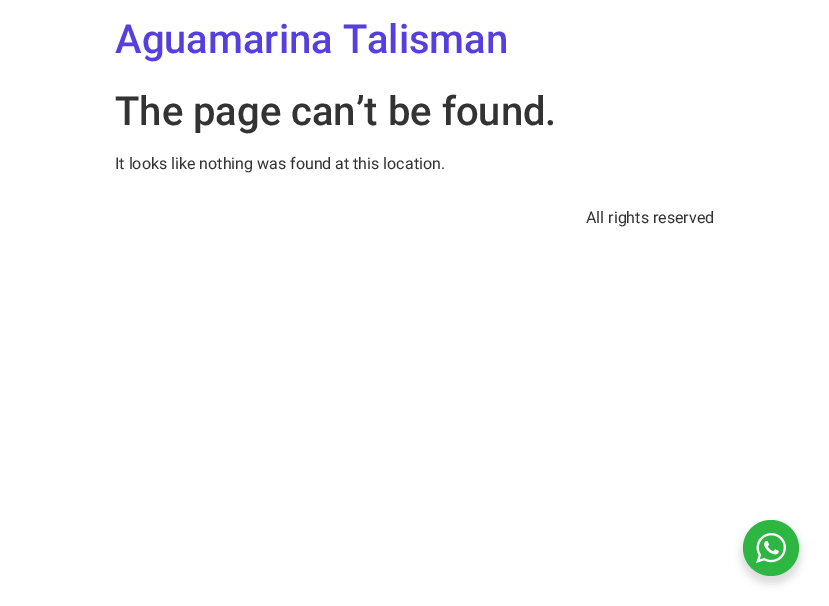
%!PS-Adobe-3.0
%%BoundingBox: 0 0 829 606
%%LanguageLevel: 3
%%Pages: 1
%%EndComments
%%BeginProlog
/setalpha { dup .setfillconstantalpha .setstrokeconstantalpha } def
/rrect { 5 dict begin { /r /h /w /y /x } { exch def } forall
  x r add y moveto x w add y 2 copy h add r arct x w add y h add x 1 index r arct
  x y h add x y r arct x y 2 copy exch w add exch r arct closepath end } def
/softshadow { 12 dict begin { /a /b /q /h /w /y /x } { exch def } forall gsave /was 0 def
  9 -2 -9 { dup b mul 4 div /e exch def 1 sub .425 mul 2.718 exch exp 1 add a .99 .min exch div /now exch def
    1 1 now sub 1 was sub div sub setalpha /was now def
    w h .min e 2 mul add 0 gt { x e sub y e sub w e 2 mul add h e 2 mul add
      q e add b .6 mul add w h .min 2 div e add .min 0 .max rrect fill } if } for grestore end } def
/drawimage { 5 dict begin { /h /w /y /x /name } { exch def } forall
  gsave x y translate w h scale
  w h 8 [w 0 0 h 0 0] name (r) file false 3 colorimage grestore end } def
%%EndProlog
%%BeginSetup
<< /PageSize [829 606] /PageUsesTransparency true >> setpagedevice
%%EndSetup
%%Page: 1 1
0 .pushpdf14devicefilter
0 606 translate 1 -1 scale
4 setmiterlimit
1 setgray
0 0 829 606 rectfill
0 setgray
741 524 60 60 30 4 0.14 softshadow
0.176 0.718 0.259 setrgbcolor
newpath 771 548 28 0 360 arc closepath fill
(images/1.raw) 756 533 30 30 drawimage
/Roboto-Medium [40 0 0 -40 0 0] selectfont
0.333 0.251 0.867 setrgbcolor
115 53 moveto (Aguamarina Talisman) show
0.2 setgray
115 125 moveto (The page can’t be found.) show
/Roboto-Regular [16 0 0 -16 0 0] selectfont
115 169 moveto (It looks like nothing was found at this location.) show
586 223 moveto (All rights reserved) show
.poppdf14devicefilter showpage
%%EOF
